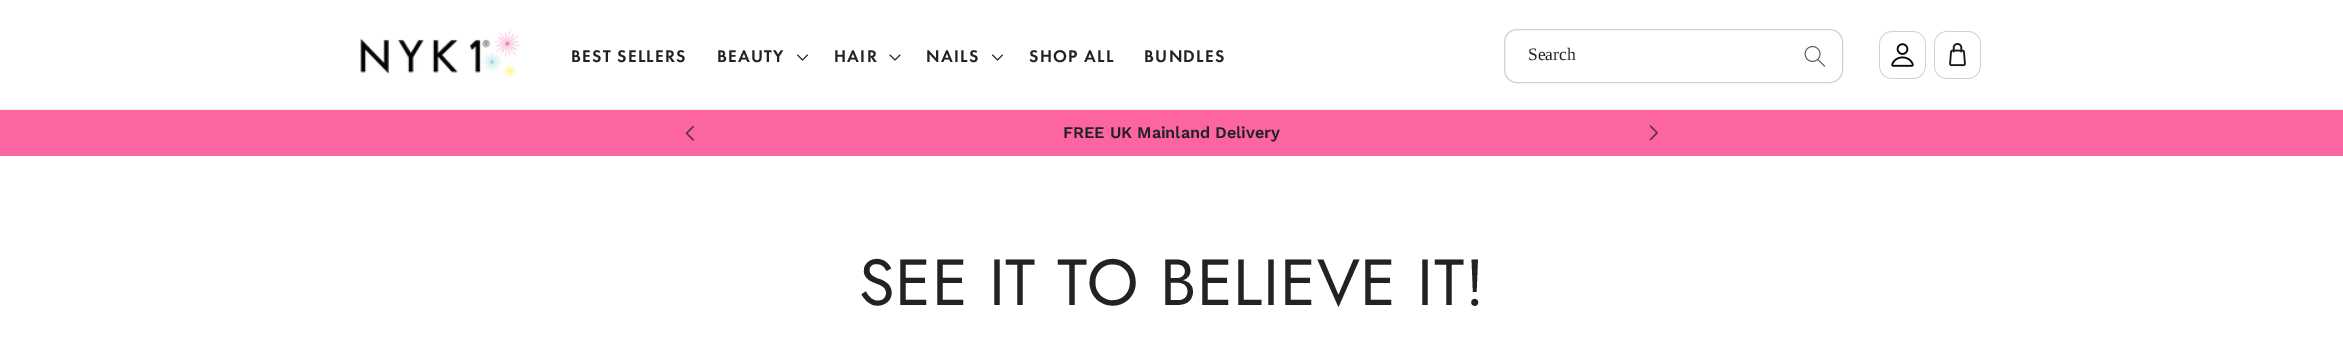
%!PS-Adobe-3.0
%%BoundingBox: 0 0 2343 351
%%LanguageLevel: 3
%%Pages: 1
%%EndComments
%%BeginProlog
/rrect { 5 dict begin { /r /h /w /y /x } { exch def } forall
  x r add y moveto x w add y 2 copy h add r arct x w add y h add x 1 index r arct
  x y h add x y r arct x y 2 copy exch w add exch r arct closepath end } def
/drawimage { 5 dict begin { /h /w /y /x /name } { exch def } forall
  gsave x y translate w h scale
  w h 8 [w 0 0 h 0 0] name (r) file false 3 colorimage grestore end } def
%%EndProlog
%%BeginSetup
<< /PageSize [2343 351] >> setpagedevice
%%EndSetup
%%Page: 1 1
0 351 translate 1 -1 scale
4 setmiterlimit
1 setgray
0 0 2343 351 rectfill
0.929 setgray
0 109 2343 1 rectfill
(images/1.raw) 360 30 162 49 drawimage
(images/2.raw) 797 54 11 7 drawimage
(images/3.raw) 889 54 12 7 drawimage
(images/2.raw) 992 54 11 7 drawimage
0.816 setgray
1504.5 29.5 338 53 12.5 rrect stroke
(images/4.raw) 1804 46 22 21 drawimage
(images/5.raw) 1879 31 47 48 drawimage
(images/6.raw) 1934 31 47 48 drawimage
0.988 0.396 0.631 setrgbcolor
0 110 2343 46 rectfill
(images/7.raw) 685 125 9 16 drawimage
(images/8.raw) 1649 125 9 16 drawimage
/FuturaPT-Medium [17.5 0 0 -17.5 0 0] selectfont
0.133 setgray
571 62 moveto 1.25 0 (BEST SELLERS) ashow
717 62 moveto 1.25 0 (BEAUTY) ashow
834 62 moveto 1.25 0 (HAIR) ashow
926 62 moveto 1.25 0 (NAILS) ashow
1029 62 moveto 1.25 0 (SHOP ALL) ashow
1144 62 moveto 1.25 0 (BUNDLES) ashow
/LiberationSerif-Regular [17.5 0 0 -17.5 0 0] selectfont
1528 60 moveto (Search) show
/WorkSans-SemiBold [16.25 0 0 -16.25 0 0] selectfont
1063 138 moveto (FREE UK Mainland Delivery) show
/Jost-Regular [65 0 0 -65 0 0] selectfont
859 305 moveto 0.75 0 (SEE IT TO BELIEVE IT!) ashow
showpage
%%EOF
